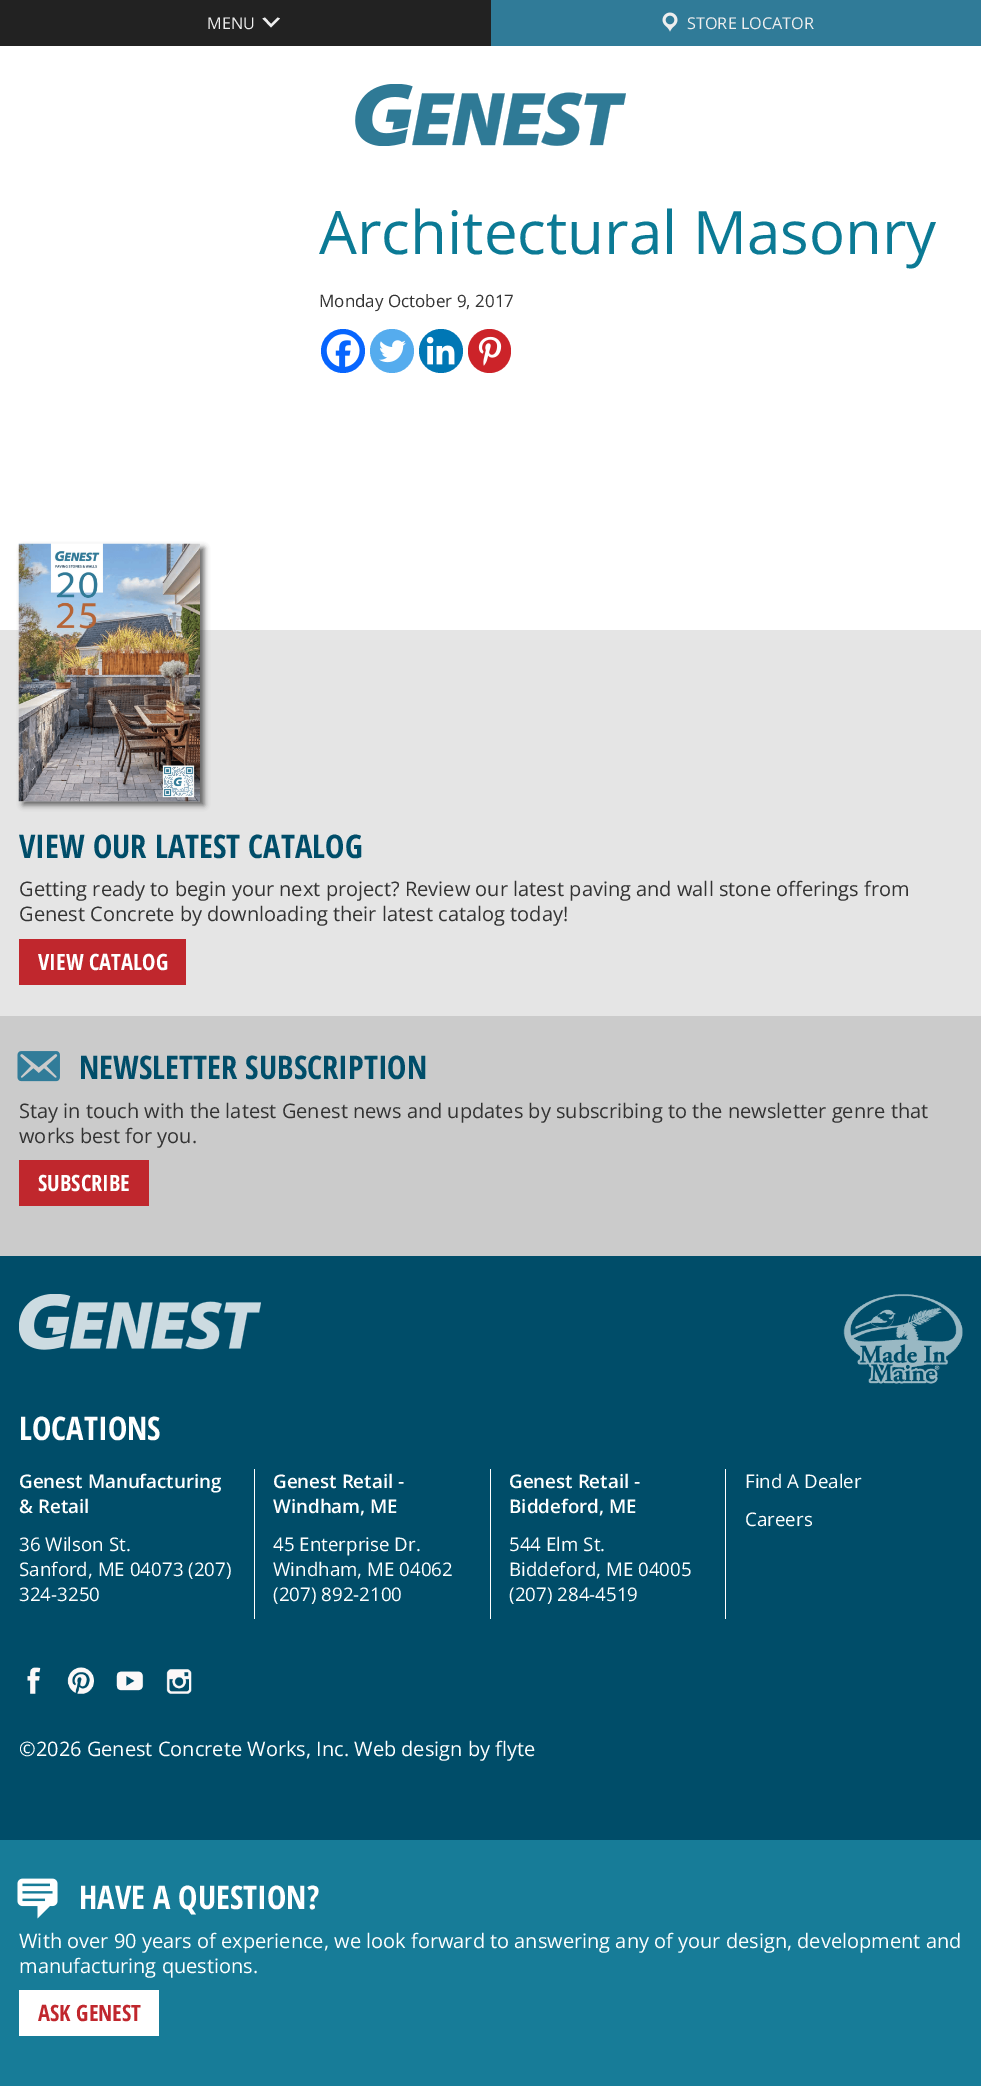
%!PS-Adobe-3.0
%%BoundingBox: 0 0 981 2088
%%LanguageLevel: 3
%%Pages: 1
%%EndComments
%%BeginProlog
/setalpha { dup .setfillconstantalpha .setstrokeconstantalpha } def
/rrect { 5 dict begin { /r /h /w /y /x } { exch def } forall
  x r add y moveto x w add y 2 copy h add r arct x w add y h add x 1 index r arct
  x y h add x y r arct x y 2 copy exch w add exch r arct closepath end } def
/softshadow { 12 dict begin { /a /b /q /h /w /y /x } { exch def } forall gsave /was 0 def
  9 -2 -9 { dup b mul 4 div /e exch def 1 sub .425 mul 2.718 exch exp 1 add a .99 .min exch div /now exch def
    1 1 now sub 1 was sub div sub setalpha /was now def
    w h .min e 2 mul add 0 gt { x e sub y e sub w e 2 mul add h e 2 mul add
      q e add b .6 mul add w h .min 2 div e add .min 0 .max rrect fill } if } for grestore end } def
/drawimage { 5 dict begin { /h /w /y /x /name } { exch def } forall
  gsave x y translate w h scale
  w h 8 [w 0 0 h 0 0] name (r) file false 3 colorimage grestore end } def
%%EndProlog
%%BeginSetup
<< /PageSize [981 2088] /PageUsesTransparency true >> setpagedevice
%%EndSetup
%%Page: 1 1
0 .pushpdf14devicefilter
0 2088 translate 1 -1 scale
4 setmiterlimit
1 setgray
0 0 981 2088 rectfill
0.133 setgray
0 0 491 46 rectfill
0.933 setgray
newpath 265 17.5 moveto 271 24 lineto 277.5 17.5 lineto 280 18.5 lineto 271 27.5 lineto 262.5 18.5 lineto closepath fill
0.188 0.482 0.596 setrgbcolor
491 0 490 46 rectfill
(images/1.raw) 662 12 16 20 drawimage
(images/2.raw) 355 84 271 62 drawimage
0.027 0.396 0.996 setrgbcolor
newpath 343 351 22 0 360 arc closepath fill
(images/3.raw) 326 334 34 33 drawimage
0.333 0.675 0.933 setrgbcolor
newpath 392 351 22 0 360 arc closepath fill
(images/4.raw) 379 340 27 23 drawimage
0 0.467 0.71 setrgbcolor
newpath 441 351 22 0 360 arc closepath fill
(images/5.raw) 426 336 29 29 drawimage
0.8 0.137 0.161 setrgbcolor
468 329 43 44 21.5 rrect fill
(images/6.raw) 478 336 24 30 drawimage
0.898 setgray
0 630 981 386 rectfill
0.196 setgray
23 548 181 257 0 3 0.75 softshadow
(images/7.raw) 18 543 182 259 drawimage
0.753 0.153 0.176 setrgbcolor
19 939 167 46 rectfill
0.796 setgray
0 1016 981 240 rectfill
(images/8.raw) 17 1051 43 31 drawimage
0.753 0.153 0.176 setrgbcolor
19 1160 130 46 rectfill
0 0.302 0.412 setrgbcolor
0 1256 981 584 rectfill
(images/9.raw) 19 1294 242 56 drawimage
(images/10.raw) 843 1294 120 90 drawimage
1 setgray
254 1469 1 150 rectfill
490 1469 1 150 rectfill
725 1469 1 150 rectfill
(images/11.raw) 27 1667 14 27 drawimage
(images/12.raw) 67 1667 27 27 drawimage
(images/13.raw) 116 1671 28 20 drawimage
(images/14.raw) 166 1669 26 25 drawimage
0.09 0.486 0.596 setrgbcolor
0 1840 981 246 rectfill
(images/15.raw) 17 1878 41 41 drawimage
1 setgray
19 1990 140 46 rectfill
/OpenSans-Regular [16.25 0 0 -16.25 0 0] selectfont
0.933 setgray
207 29 moveto (MENU) show
687 29 moveto (STORE LOCATOR) show
/OpenSans-Regular [60 0 0 -60 0 0] selectfont
0.043 0.478 0.584 setrgbcolor
319 254 moveto (Architectural Masonry) show
/OpenSans-Regular [17 0 0 -17 0 0] selectfont
0.2 setgray
319 307 moveto (Monday October 9, 2017) show
/OpenSansCondensed-Bold [32.5 0 0 -32.5 0 0] selectfont
0 0.302 0.412 setrgbcolor
19 858 moveto (VIEW OUR LATEST CATALOG) show
/OpenSans-Regular [20 0 0 -20 0 0] selectfont
0.2 setgray
19 896 moveto (Getting ready to begin your next project? Review our latest paving and wall stone offerings from) show
19 921 moveto (Genest Concrete by downloading their latest catalog today!) show
/OpenSansCondensed-Bold [22.5 0 0 -22.5 0 0] selectfont
1 setgray
38 970 moveto (VIEW CATALOG) show
/OpenSansCondensed-Bold [32.5 0 0 -32.5 0 0] selectfont
0 0.302 0.412 setrgbcolor
79 1079 moveto (NEWSLETTER SUBSCRIPTION) show
/OpenSans-Regular [20 0 0 -20 0 0] selectfont
0.2 setgray
19 1118 moveto (Stay in touch with the latest Genest news and updates by subscribing to the newsletter genre that) show
19 1143 moveto (works best for you.) show
/OpenSansCondensed-Bold [22.5 0 0 -22.5 0 0] selectfont
1 setgray
38 1191 moveto (SUBSCRIBE) show
/OpenSansCondensed-Bold [32.5 0 0 -32.5 0 0] selectfont
19 1440 moveto (LOCATIONS) show
/OpenSans-SemiBold [18.75 0 0 -18.75 0 0] selectfont
19 1488 moveto (Genest Manufacturing) show
19 1513 moveto (& Retail) show
/OpenSans-Regular [18.75 0 0 -18.75 0 0] selectfont
19 1551 moveto (36 Wilson St.) show
19 1576 moveto (Sanford, ME 04073 \(207\)) show
19 1601 moveto (324-3250) show
/OpenSans-SemiBold [18.75 0 0 -18.75 0 0] selectfont
273 1488 moveto (Genest Retail -) show
273 1513 moveto (Windham, ME) show
/OpenSans-Regular [18.75 0 0 -18.75 0 0] selectfont
273 1551 moveto (45 Enterprise Dr.) show
273 1576 moveto (Windham, ME 04062) show
273 1601 moveto (\(207\) 892-2100) show
/OpenSans-SemiBold [18.75 0 0 -18.75 0 0] selectfont
509 1488 moveto (Genest Retail -) show
509 1513 moveto (Biddeford, ME) show
/OpenSans-Regular [18.75 0 0 -18.75 0 0] selectfont
509 1551 moveto (544 Elm St.) show
509 1576 moveto (Biddeford, ME 04005) show
509 1601 moveto (\(207\) 284-4519) show
745 1488 moveto (Find A Dealer) show
745 1526 moveto (Careers) show
/OpenSans-Regular [20 0 0 -20 0 0] selectfont
19 1756 moveto (©2026 Genest Concrete Works, Inc. Web design by flyte) show
/OpenSansCondensed-Bold [32.5 0 0 -32.5 0 0] selectfont
79 1909 moveto (HAVE A QUESTION?) show
/OpenSans-Regular [20 0 0 -20 0 0] selectfont
19 1948 moveto (With over 90 years of experience, we look forward to answering any of your design, development and) show
19 1973 moveto (manufacturing questions.) show
/OpenSansCondensed-Bold [22.5 0 0 -22.5 0 0] selectfont
0.753 0.153 0.176 setrgbcolor
38 2021 moveto (ASK GENEST) show
.poppdf14devicefilter showpage
%%EOF
